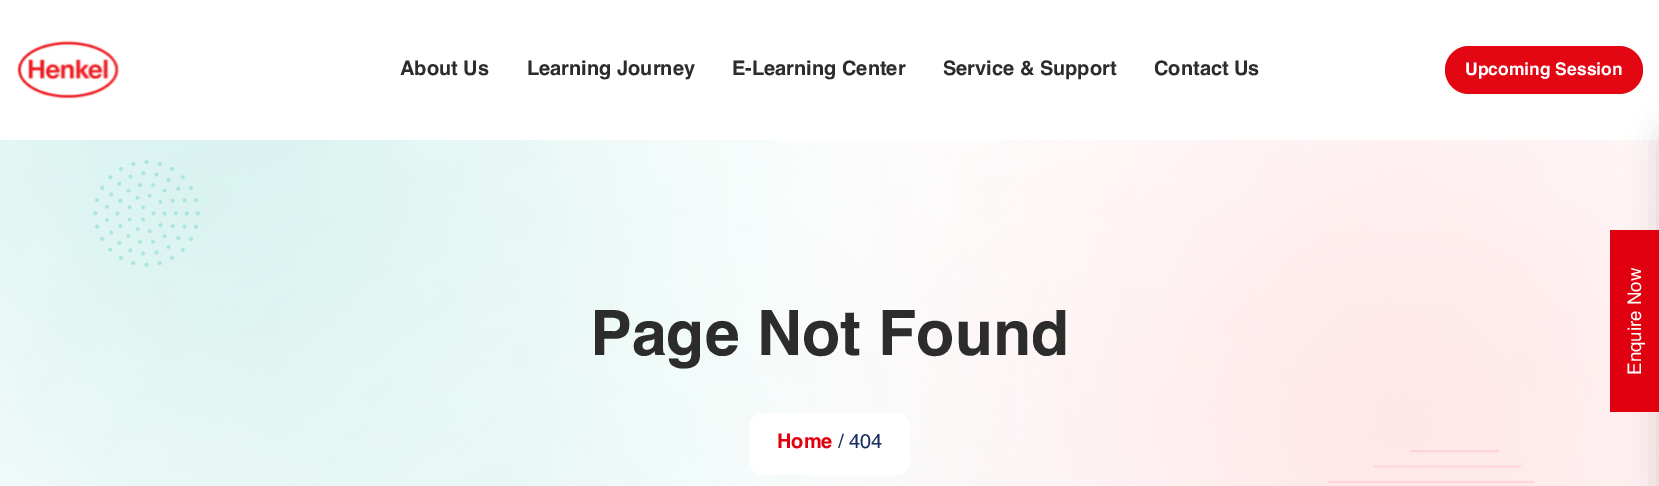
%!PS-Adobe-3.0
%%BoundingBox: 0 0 1659 486
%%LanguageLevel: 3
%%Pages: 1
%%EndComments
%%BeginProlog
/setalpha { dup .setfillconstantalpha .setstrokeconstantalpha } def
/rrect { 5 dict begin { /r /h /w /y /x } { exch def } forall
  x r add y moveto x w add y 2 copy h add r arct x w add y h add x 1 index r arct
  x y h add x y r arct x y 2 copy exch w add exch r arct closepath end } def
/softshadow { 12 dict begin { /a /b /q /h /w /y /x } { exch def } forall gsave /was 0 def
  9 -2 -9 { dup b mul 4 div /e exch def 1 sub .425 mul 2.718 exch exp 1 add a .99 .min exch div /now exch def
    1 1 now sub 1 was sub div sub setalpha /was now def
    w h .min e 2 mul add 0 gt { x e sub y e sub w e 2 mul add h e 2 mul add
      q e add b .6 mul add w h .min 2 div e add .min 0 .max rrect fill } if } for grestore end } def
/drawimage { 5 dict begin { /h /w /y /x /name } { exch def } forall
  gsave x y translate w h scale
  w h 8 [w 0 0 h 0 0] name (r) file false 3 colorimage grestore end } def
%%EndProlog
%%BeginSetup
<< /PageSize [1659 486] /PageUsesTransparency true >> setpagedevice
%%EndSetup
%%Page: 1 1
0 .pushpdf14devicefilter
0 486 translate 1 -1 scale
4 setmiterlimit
1 setgray
0 0 1659 486 rectfill
(images/1.raw) 17 40 103 59 drawimage
0.89 0.024 0.075 setrgbcolor
1445 46 198 48 24 rrect fill
(images/2.raw) 0 140 1659 346 drawimage
0 setgray
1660 126 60 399 14 15.5 0.15 softshadow
0.882 0 0.059 setrgbcolor
1610 230 49 182 rectfill
1 setgray
751.5 414.5 157 59 11.5 rrect gsave fill grestore
3 setlinewidth
stroke
/Helvetica-Bold [20 0 0 -20 0 0] selectfont
0.173 setgray
400 75 moveto (About Us) show
527 75 moveto (Learning Journey) show
732 75 moveto (E-Learning Center) show
943 75 moveto (Service & Support) show
1154 75 moveto (Contact Us) show
/Helvetica-Bold [17.5 0 0 -17.5 0 0] selectfont
1 setgray
1465 75 moveto (Upcoming Session) show
/Helvetica-Regular [18.75 0 0 -18.75 0 0] selectfont
gsave 1641 375 translate -90 rotate 0 0 moveto (Enquire Now) show grestore
/Helvetica-Bold [62.5 0 0 -62.5 0 0] selectfont
0.173 setgray
590 355 moveto (Page Not Found) show
/Helvetica-Bold [20 0 0 -20 0 0] selectfont
0.882 0 0.059 setrgbcolor
777 448 moveto (Home) show
/Helvetica-Regular [20 0 0 -20 0 0] selectfont
0.102 0.176 0.384 setrgbcolor
838 448 moveto (/ 404) show
.poppdf14devicefilter showpage
%%EOF
